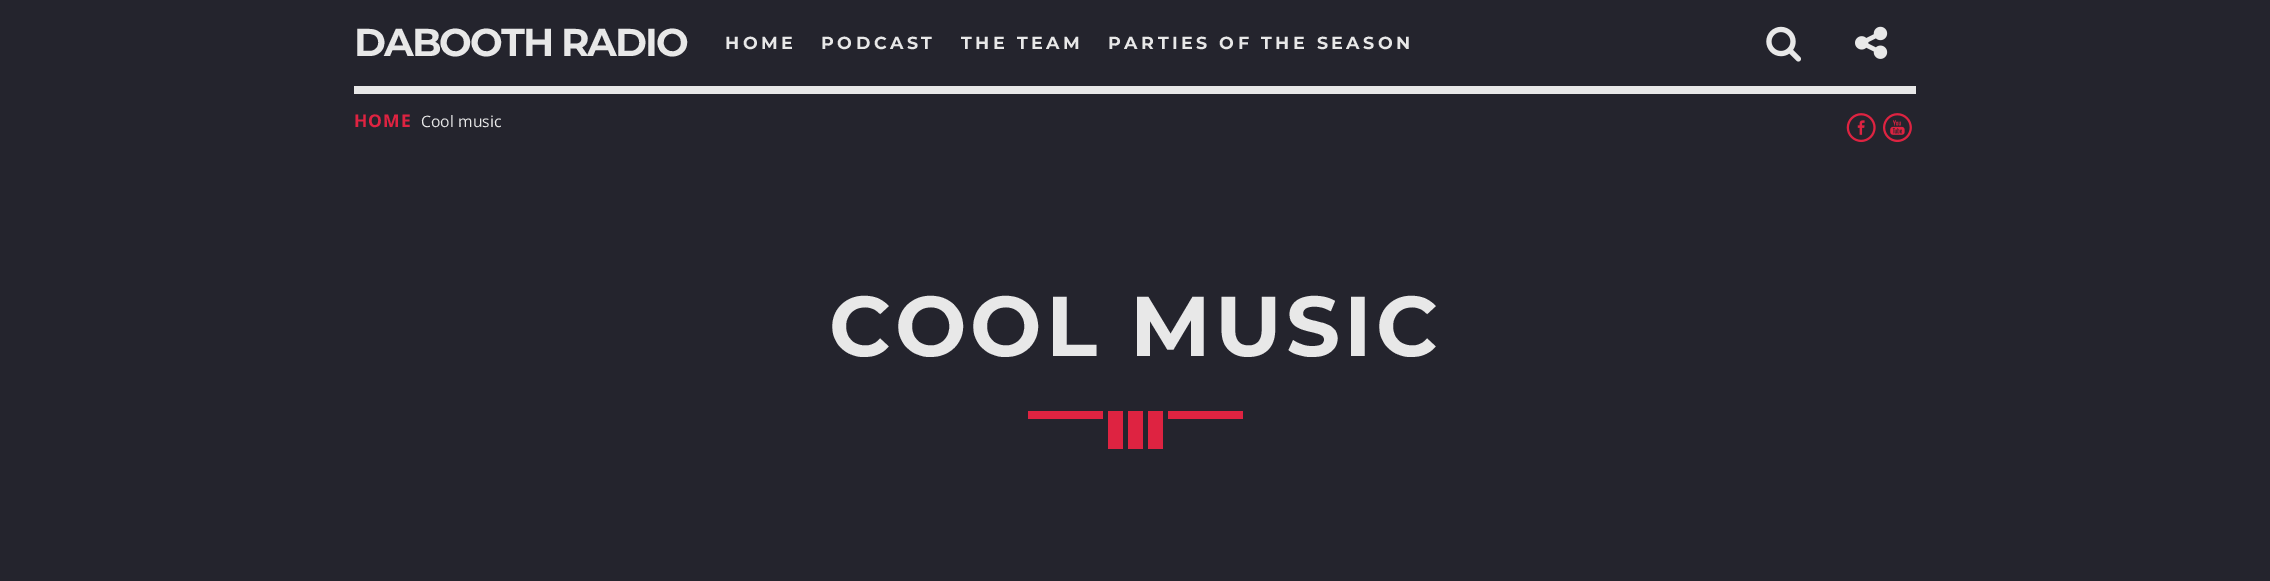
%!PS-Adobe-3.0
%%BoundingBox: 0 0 2270 581
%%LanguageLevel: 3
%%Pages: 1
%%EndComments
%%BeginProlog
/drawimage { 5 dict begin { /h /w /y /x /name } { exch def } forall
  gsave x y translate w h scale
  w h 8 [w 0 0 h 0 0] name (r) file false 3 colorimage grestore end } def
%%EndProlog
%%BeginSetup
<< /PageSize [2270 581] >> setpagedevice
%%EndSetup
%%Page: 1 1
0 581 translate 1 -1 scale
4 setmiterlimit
0.141 0.141 0.176 setrgbcolor
0 0 2270 581 rectfill
(images/1.raw) 1766 26 35 36 drawimage
(images/2.raw) 1855 26 33 33 drawimage
0.91 setgray
354 86 1562 8 rectfill
(images/3.raw) 1846 113 30 30 drawimage
(images/4.raw) 1883 113 29 30 drawimage
0.871 0.137 0.255 setrgbcolor
1028 411 75 8 rectfill
1128 411 15 38 rectfill
1108 411 15 38 rectfill
1148 411 15 38 rectfill
1168 411 75 8 rectfill
/Montserrat-Thin [38.75 0 0 -38.75 0 0] selectfont
0.91 setgray
354 56 moveto -2 0 (DABOOTH RADIO) ashow
/Montserrat-Thin [17.5 0 0 -17.5 0 0] selectfont
725 49 moveto 3.5 0 (HOME) ashow
821 49 moveto 3.5 0 (PODCAST) ashow
961 49 moveto 3.5 0 (THE TEAM) ashow
1108 49 moveto 3.5 0 (PARTIES OF THE SEASON) ashow
/OpenSans-Bold [17.5 0 0 -17.5 0 0] selectfont
0.871 0.137 0.255 setrgbcolor
354 127 moveto 1 0 (HOME) ashow
/OpenSans-Regular [15.75 0 0 -15.75 0 0] selectfont
0.91 setgray
421 127 moveto (Cool music) show
/Montserrat-Thin [84.75 0 0 -84.75 0 0] selectfont
829 356 moveto 4.25 0 (COOL MUSIC) ashow
showpage
%%EOF
